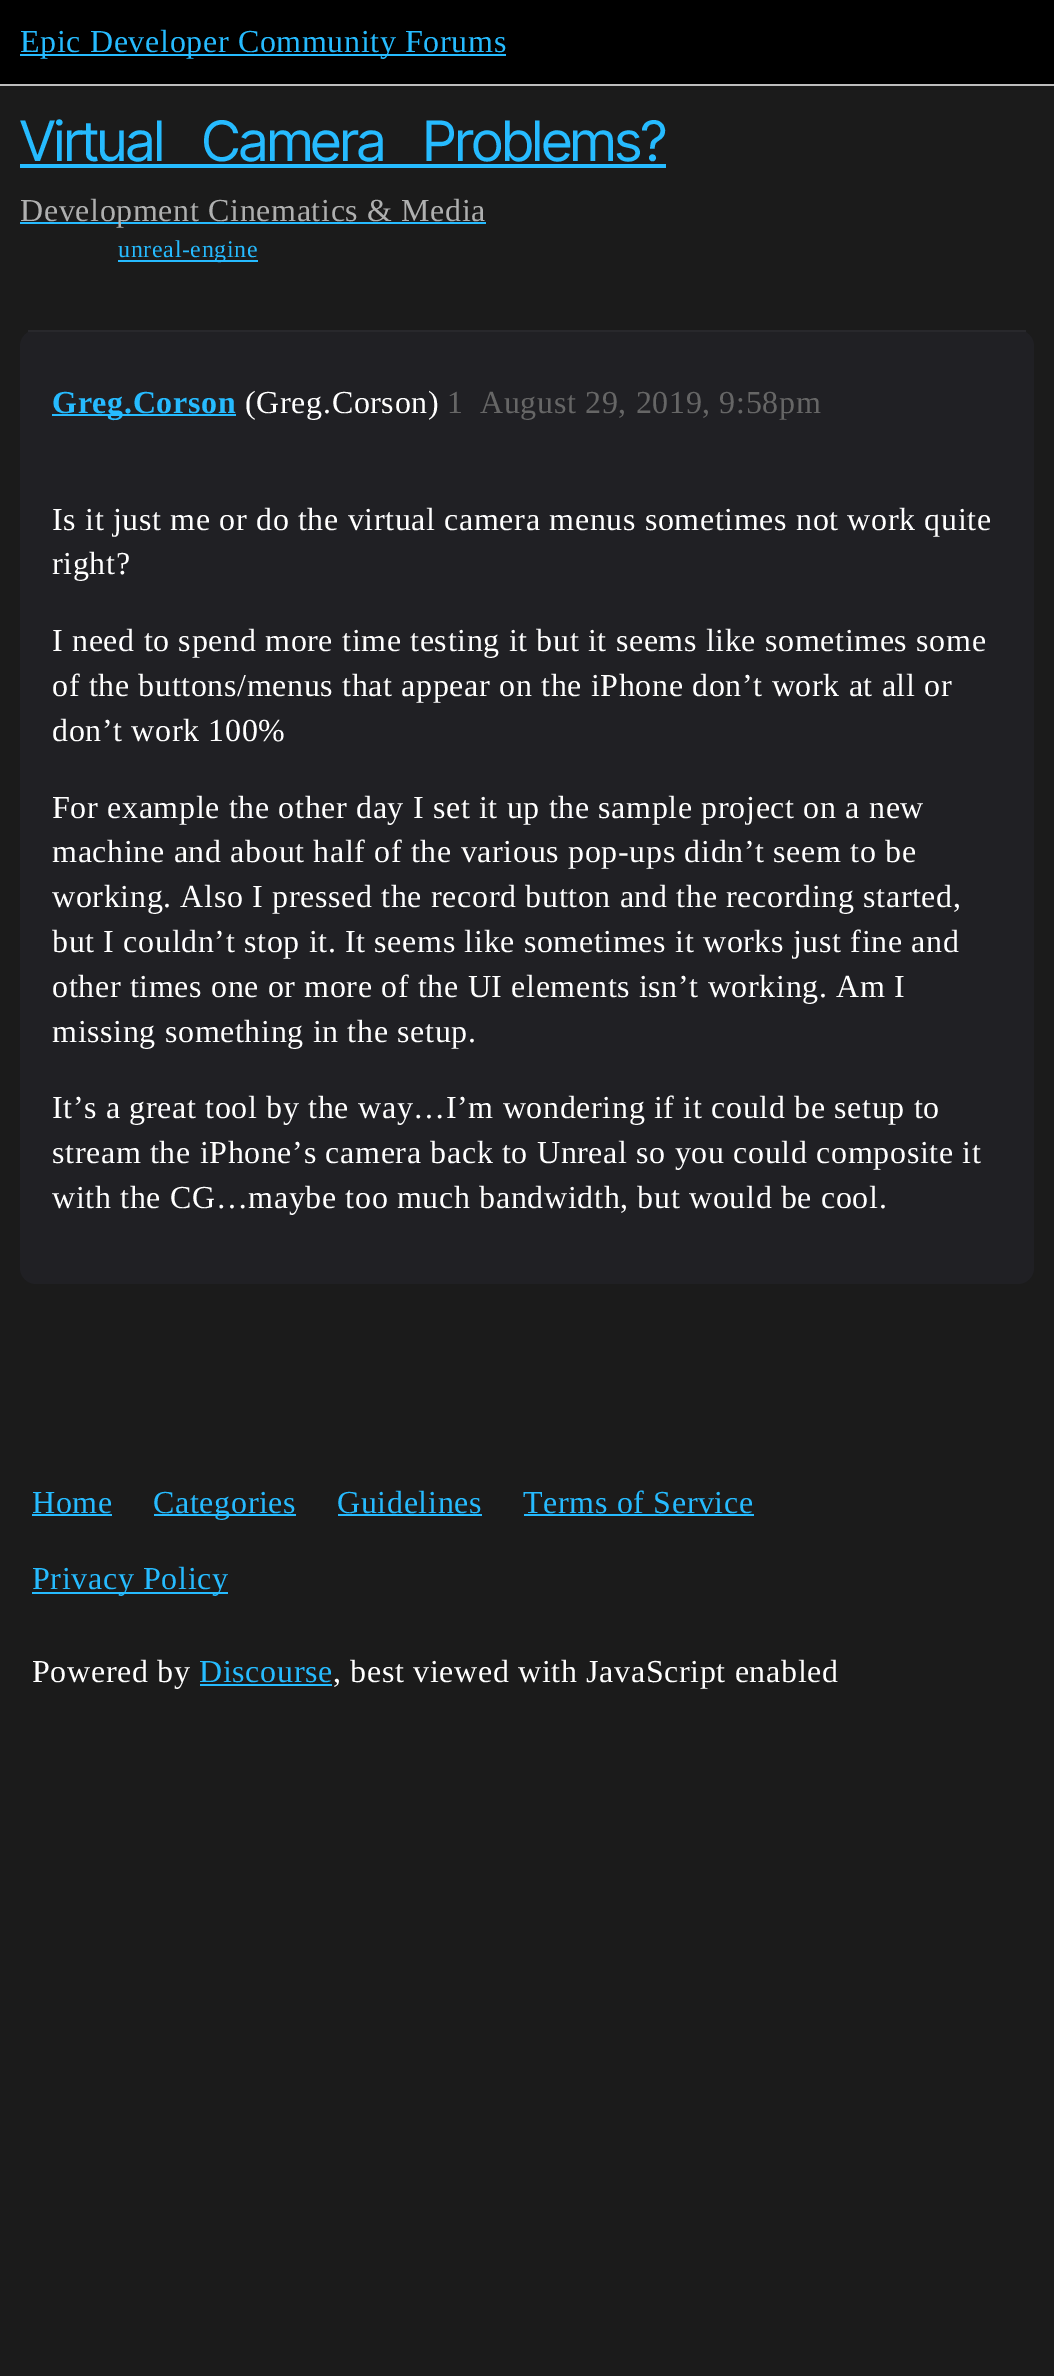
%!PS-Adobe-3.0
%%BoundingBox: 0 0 1054 2376
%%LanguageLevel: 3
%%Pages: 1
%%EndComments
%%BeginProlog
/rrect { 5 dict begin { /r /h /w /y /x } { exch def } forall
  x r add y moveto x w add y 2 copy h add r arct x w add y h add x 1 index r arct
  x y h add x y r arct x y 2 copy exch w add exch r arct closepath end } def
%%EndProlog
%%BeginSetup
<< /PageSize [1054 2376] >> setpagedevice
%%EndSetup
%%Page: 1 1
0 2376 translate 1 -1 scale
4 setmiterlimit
0.106 setgray
0 0 1054 2376 rectfill
0 setgray
0 0 1054 84 rectfill
0.741 setgray
0 84 1054 2 rectfill
0.149 0.733 1 setrgbcolor
20 54 486 2 rectfill
20 164 646 4 rectfill
20 222 466 2 rectfill
118 260 140 2 rectfill
0.125 0.125 0.141 setrgbcolor
20 330 1014 954 16 rrect fill
0.157 0.157 0.173 setrgbcolor
28 330 998 2 rectfill
0.149 0.733 1 setrgbcolor
52 414 184 2 rectfill
32 1514 80 2 rectfill
154 1514 142 2 rectfill
338 1514 144 2 rectfill
524 1514 230 2 rectfill
32 1592 196 2 rectfill
200 1684 132 2 rectfill
/LiberationSerif-Regular [32 0 0 -32 0 0] selectfont
20 52 moveto 0.65 0 (Epic Developer Community Forums) ashow
/InterTight-Regular [55.75 0 0 -55.75 0 0] selectfont
20 161 moveto 26 0 32 -1 0 (Virtual Camera Problems?) awidthshow
/LiberationSerif-Regular [32 0 0 -32 0 0] selectfont
0.686 0.69 0.69 setrgbcolor
20 221 moveto 0.65 0 (Development) ashow
208 221 moveto 0.65 0 (Cinematics & Media) ashow
/LiberationSerif-Regular [24 0 0 -24 0 0] selectfont
0.149 0.733 1 setrgbcolor
118 257 moveto 0.65 0 (unreal-engine) ashow
/LiberationSerif-Bold [32 0 0 -32 0 0] selectfont
52 413 moveto 0.65 0 (Greg.Corson) ashow
/LiberationSerif-Regular [32 0 0 -32 0 0] selectfont
1 setgray
245 413 moveto 0.65 0 (\(Greg.Corson\)) ashow
0.4 setgray
447 413 moveto 0.65 0 (1) ashow
480 413 moveto 0.65 0 (August 29, 2019, 9:58pm) ashow
1 setgray
52 530 moveto 0.65 0 (Is it just me or do the virtual camera menus sometimes not work quite) ashow
52 574 moveto 0.65 0 (right?) ashow
52 651 moveto 0.65 0 (I need to spend more time testing it but it seems like sometimes some) ashow
52 696 moveto 0.65 0 (of the buttons/menus that appear on the iPhone don’t work at all or) ashow
52 741 moveto 0.65 0 (don’t work 100%) ashow
52 818 moveto 0.65 0 (For example the other day I set it up the sample project on a new) ashow
52 862 moveto 0.65 0 (machine and about half of the various pop-ups didn’t seem to be) ashow
52 907 moveto 0.65 0 (working. Also I pressed the record button and the recording started,) ashow
52 952 moveto 0.65 0 (but I couldn’t stop it. It seems like sometimes it works just fine and) ashow
52 997 moveto 0.65 0 (other times one or more of the UI elements isn’t working. Am I) ashow
52 1042 moveto 0.65 0 (missing something in the setup.) ashow
52 1118 moveto 0.65 0 (It’s a great tool by the way…I’m wondering if it could be setup to) ashow
52 1163 moveto 0.65 0 (stream the iPhone’s camera back to Unreal so you could composite it) ashow
52 1208 moveto 0.65 0 (with the CG…maybe too much bandwidth, but would be cool.) ashow
0.149 0.733 1 setrgbcolor
32 1513 moveto 0.65 0 (Home) ashow
153 1513 moveto 0.65 0 (Categories) ashow
337 1513 moveto 0.65 0 (Guidelines) ashow
523 1513 moveto 0.65 0 (Terms of Service) ashow
32 1589 moveto 0.65 0 (Privacy Policy) ashow
1 setgray
32 1682 moveto 0.65 0 (Powered by) ashow
0.149 0.733 1 setrgbcolor
199 1682 moveto 0.65 0 (Discourse) ashow
1 setgray
333 1682 moveto 0.65 0 (, best viewed with JavaScript enabled) ashow
showpage
%%EOF
